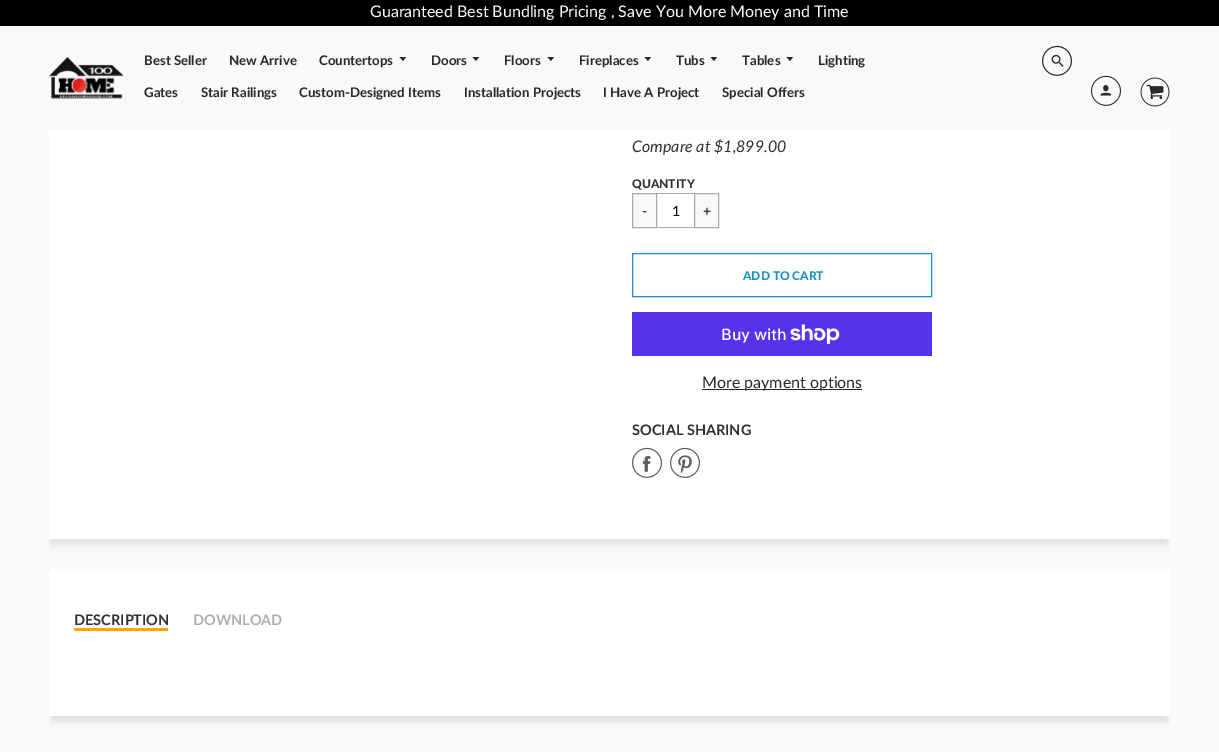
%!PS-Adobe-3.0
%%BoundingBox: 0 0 1219 752
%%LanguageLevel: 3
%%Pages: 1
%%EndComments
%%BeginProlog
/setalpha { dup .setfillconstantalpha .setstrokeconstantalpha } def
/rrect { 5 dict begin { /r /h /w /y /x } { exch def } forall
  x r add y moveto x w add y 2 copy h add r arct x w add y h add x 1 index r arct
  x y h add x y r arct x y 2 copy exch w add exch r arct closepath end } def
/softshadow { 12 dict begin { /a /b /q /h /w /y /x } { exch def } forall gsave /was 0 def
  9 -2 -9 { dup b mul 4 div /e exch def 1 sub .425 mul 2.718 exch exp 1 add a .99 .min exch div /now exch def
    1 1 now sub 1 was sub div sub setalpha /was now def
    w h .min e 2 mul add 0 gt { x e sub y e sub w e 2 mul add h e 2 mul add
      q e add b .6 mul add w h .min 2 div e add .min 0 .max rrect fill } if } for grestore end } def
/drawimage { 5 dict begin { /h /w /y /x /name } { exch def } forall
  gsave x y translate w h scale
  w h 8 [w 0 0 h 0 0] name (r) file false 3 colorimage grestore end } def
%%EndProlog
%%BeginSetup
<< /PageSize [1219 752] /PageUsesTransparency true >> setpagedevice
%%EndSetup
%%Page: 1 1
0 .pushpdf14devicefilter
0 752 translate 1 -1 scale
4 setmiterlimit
0.976 setgray
0 0 1219 752 rectfill
gsave
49 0 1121 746 rectclip
0.639 setgray
51 -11 1117 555 0 3.5 0.32 softshadow
grestore
49 26 1121 104 rectfill
0 setgray
0 0 1219 26 rectfill
(images/1.raw) 49 57 75 42 drawimage
0.161 setgray
newpath 399.5 57 moveto 403 61 lineto 406 57 lineto closepath fill
newpath 472.5 57 moveto 476 61 lineto 479 57 lineto closepath fill
newpath 547.5 57 moveto 551 61 lineto 554 57 lineto closepath fill
newpath 644.5 57 moveto 648 61 lineto 651 57 lineto closepath fill
newpath 710.5 57 moveto 714 61 lineto 717 57 lineto closepath fill
newpath 786.5 57 moveto 790 61 lineto 793 57 lineto closepath fill
(images/2.raw) 1042 45 30 31 drawimage
(images/3.raw) 1091 75 30 31 drawimage
(images/4.raw) 1140 77 30 30 drawimage
1 setgray
49 130 1121 409 rectfill
0.667 setgray
656 193 40 1 rectfill
656 227 40 1 rectfill
0.973 setgray
newpath 632.5 193.5 moveto 656.5 193.5 lineto 656.5 227.5 lineto 632.5 227.5 lineto closepath gsave fill grestore
0.667 setgray
stroke
0.973 setgray
newpath 694.5 193.5 moveto 718.5 193.5 lineto 718.5 227.5 lineto 694.5 227.5 lineto closepath gsave fill grestore
0.667 setgray
stroke
0.098 0.565 0.776 setrgbcolor
632.5 253.5 299 43 rectstroke
0.329 0.2 0.922 setrgbcolor
632 312 300 44 rectfill
(images/5.raw) 790 324 50 20 drawimage
0.161 setgray
702 389 160 1 rectfill
(images/6.raw) 632 447 30 31 drawimage
(images/7.raw) 670 447 30 31 drawimage
gsave
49 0 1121 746 rectclip
0.639 setgray
51 578 1117 143 0 3.5 0.32 softshadow
grestore
1 setgray
49 569 1121 147 rectfill
1 0.663 0 setrgbcolor
74 628 94 3 rectfill
/Lato-Regular [16 0 0 -16 0 0] selectfont
1 setgray
370 17 moveto (Guaranteed Best Bundling Pricing , Save You More Money and Time) show
/Lato-Bold [13.25 0 0 -13.25 0 0] selectfont
0.161 setgray
144 65 moveto (Best Seller) show
229 65 moveto (New Arrive) show
319 65 moveto (Countertops) show
431 65 moveto (Doors) show
504 65 moveto (Floors) show
579 65 moveto (Fireplaces) show
676 65 moveto (Tubs) show
742 65 moveto (Tables) show
818 65 moveto (Lighting) show
144 97 moveto (Gates) show
201 97 moveto (Stair Railings) show
299 97 moveto (Custom-Designed Items) show
464 97 moveto (Installation Projects) show
603 97 moveto (I Have A Project) show
722 97 moveto (Special Offers) show
/Lato-Italic [16 0 0 -16 0 0] selectfont
0.192 setgray
632 152 moveto (Compare at $1,899.00) show
/Lato-Black [12 0 0 -12 0 0] selectfont
632 188 moveto (QUANTITY) show
/Lato-Regular [14 0 0 -14 0 0] selectfont
0 setgray
642 216 moveto (-) show
672 216 moveto (1) show
703 216 moveto (+) show
/Lato-Black [12 0 0 -12 0 0] selectfont
0.098 0.565 0.776 setrgbcolor
743 280 moveto (ADD TO CART) show
/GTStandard-Medium [16 0 0 -16 0 0] selectfont
1 setgray
721 340 moveto (Buy with) show
/Lato-Regular [16 0 0 -16 0 0] selectfont
0.161 setgray
702 388 moveto (More payment options) show
/Lato-Bold [14.5 0 0 -14.5 0 0] selectfont
0.192 setgray
632 435 moveto (SOCIAL SHARING) show
74 625 moveto (DESCRIPTION) show
0.686 setgray
193 625 moveto (DOWNLOAD) show
.poppdf14devicefilter showpage
%%EOF
